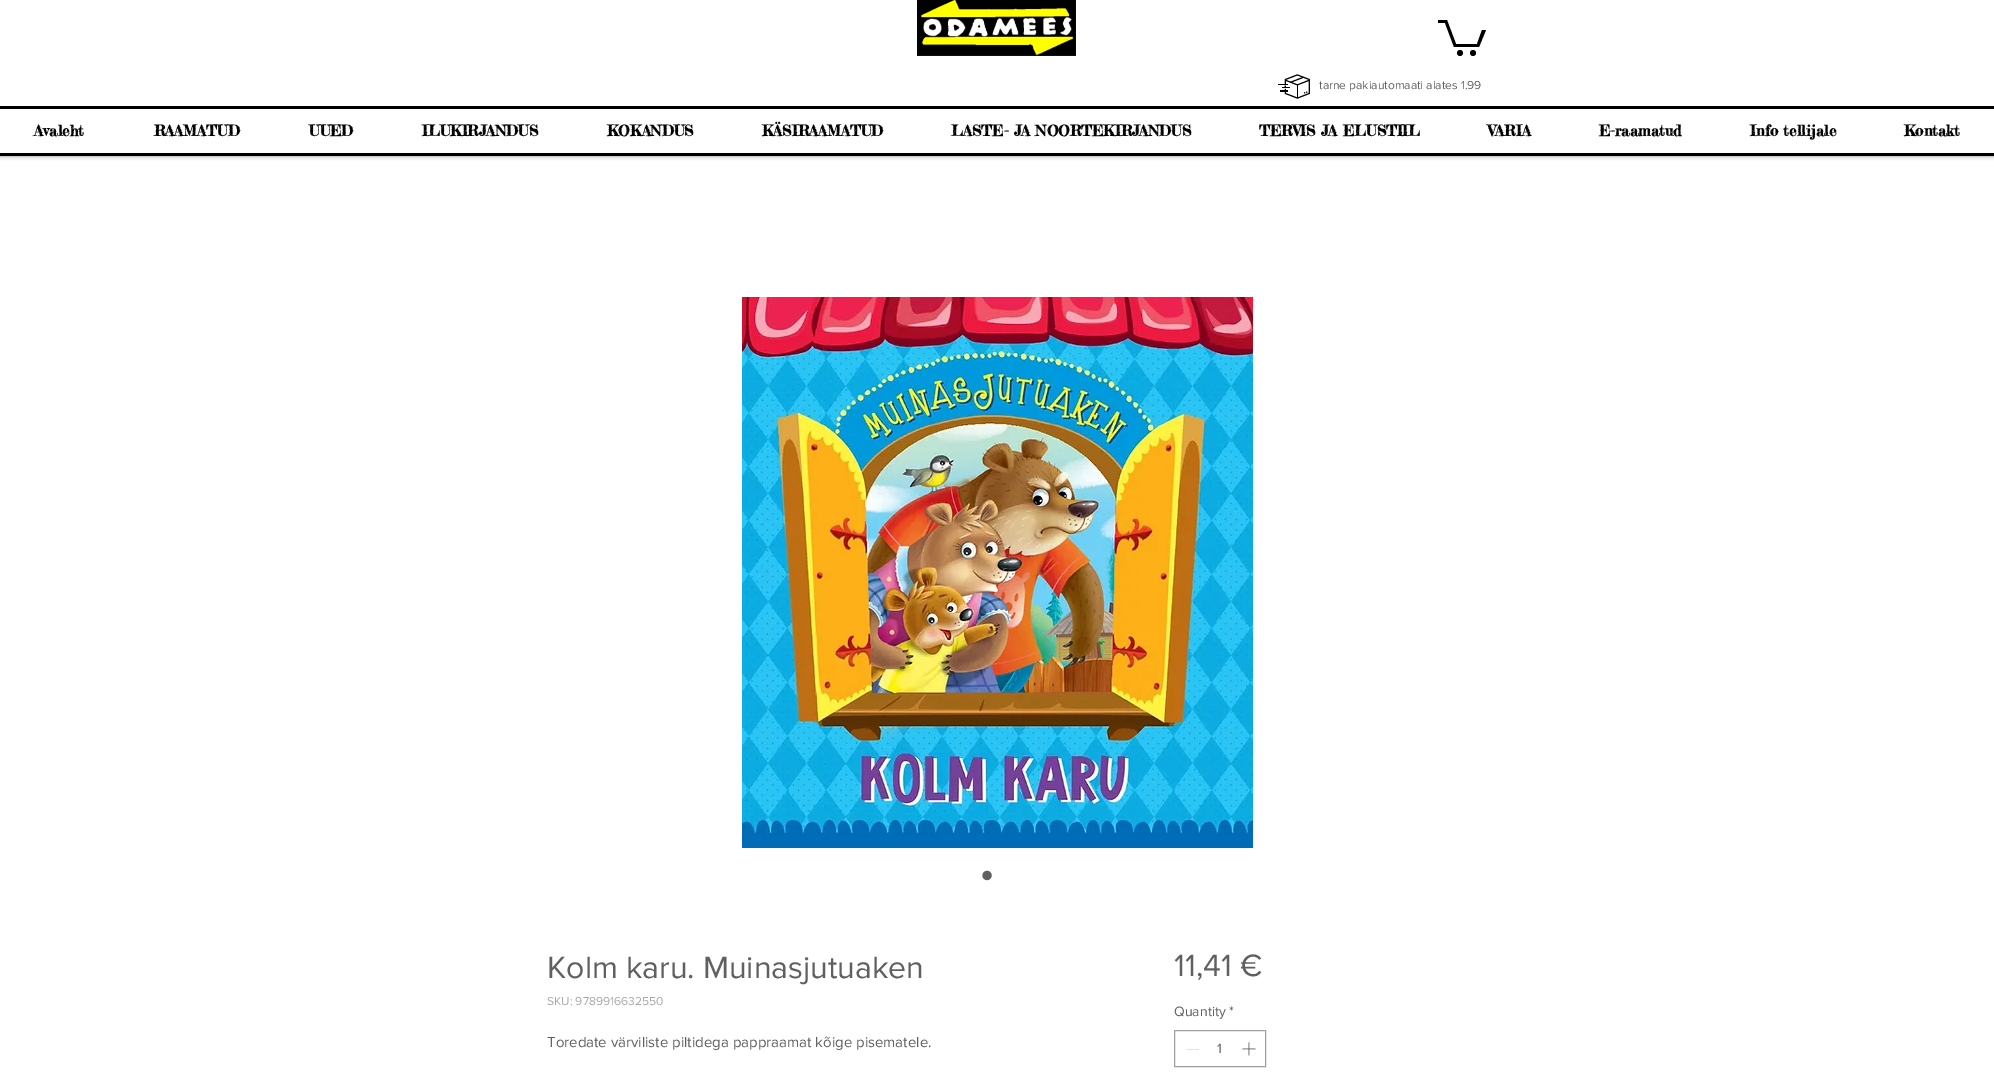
%!PS-Adobe-3.0
%%BoundingBox: 0 0 1994 1092
%%LanguageLevel: 3
%%Pages: 1
%%EndComments
%%BeginProlog
/setalpha { dup .setfillconstantalpha .setstrokeconstantalpha } def
/rrect { 5 dict begin { /r /h /w /y /x } { exch def } forall
  x r add y moveto x w add y 2 copy h add r arct x w add y h add x 1 index r arct
  x y h add x y r arct x y 2 copy exch w add exch r arct closepath end } def
/softshadow { 12 dict begin { /a /b /q /h /w /y /x } { exch def } forall gsave /was 0 def
  9 -2 -9 { dup b mul 4 div /e exch def 1 sub .425 mul 2.718 exch exp 1 add a .99 .min exch div /now exch def
    1 1 now sub 1 was sub div sub setalpha /was now def
    w h .min e 2 mul add 0 gt { x e sub y e sub w e 2 mul add h e 2 mul add
      q e add b .6 mul add w h .min 2 div e add .min 0 .max rrect fill } if } for grestore end } def
/drawimage { 5 dict begin { /h /w /y /x /name } { exch def } forall
  gsave x y translate w h scale
  w h 8 [w 0 0 h 0 0] name (r) file false 3 colorimage grestore end } def
%%EndProlog
%%BeginSetup
<< /PageSize [1994 1092] /PageUsesTransparency true >> setpagedevice
%%EndSetup
%%Page: 1 1
0 .pushpdf14devicefilter
0 1092 translate 1 -1 scale
4 setmiterlimit
1 setgray
0 0 1994 1092 rectfill
0 setgray
0 0 1994 155 0 2.5 0.7 softshadow
1 setgray
0 0 1994 153 rectfill
(images/1.raw) 917 0 159 56 drawimage
0 setgray
newpath 1486 30 moveto 1479 47 lineto 1454 47 lineto 1445 23 lineto 1438 23 lineto 1438 20 lineto 1447 20 lineto 1456 44 lineto 1477 44 lineto 1482 30 lineto fill
newpath 1473 53 3 0 360 arc closepath fill
newpath 1460 53 3 0 360 arc closepath fill
(images/2.raw) 1278 74 32 25 drawimage
0 106 1994 3 rectfill
0 153 1994 3 rectfill
(images/3.raw) 742 297 511 551 drawimage
0.627 setgray
1174.5 1030.5 91 36 rectstroke
0.89 setgray
1186 1049 13 1 rectfill
(images/4.raw) 1242 1042 14 14 drawimage
/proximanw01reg-Regular [12 0 0 -12 0 0] selectfont
0.376 setgray
1319 89 moveto (tarne pakiautomaati alates 1.99) show
/FrederickatheGreat-Bold [15 0 0 -15 0 0] selectfont
0 setgray
34 136 moveto (Avaleht) show
154 136 moveto (RAAMATUD) show
309 136 moveto (UUED) show
422 136 moveto (ILUKIRJANDUS) show
607 136 moveto (KOKANDUS) show
762 136 moveto (KÄSIRAAMATUD) show
951 136 moveto (LASTE- JA NOORTEKIRJANDUS) show
1259 136 moveto (TERVIS JA ELUSTIIL) show
1488 136 moveto (VARIA) show
1599 136 moveto (E-raamatud) show
1750 136 moveto (Info tellijale) show
1904 136 moveto (Kontakt) show
/LiberationSans-Regular [35 0 0 -35 0 0] selectfont
0.376 setgray
981 887 moveto (•) show
/proximanw01reg-Regular [32 0 0 -32 0 0] selectfont
547 978 moveto (Kolm karu. Muinasjutuaken) show
/proximanw01reg-Regular [12 0 0 -12 0 0] selectfont
0.659 setgray
547 1005 moveto (SKU: 9789916632550) show
/proximanw01reg-Regular [15 0 0 -15 0 0] selectfont
0.376 setgray
547 1047 moveto (Toredate värviliste piltidega pappraamat kõige pisematele.) show
/proximanw01reg-Regular [32 0 0 -32 0 0] selectfont
1174 976 moveto (11,41 €) show
/proximanw01reg-Regular [14 0 0 -14 0 0] selectfont
1174 1016 moveto (Quantity) show
1229 1016 moveto (*) show
1217 1053 moveto (1) show
.poppdf14devicefilter showpage
%%EOF
